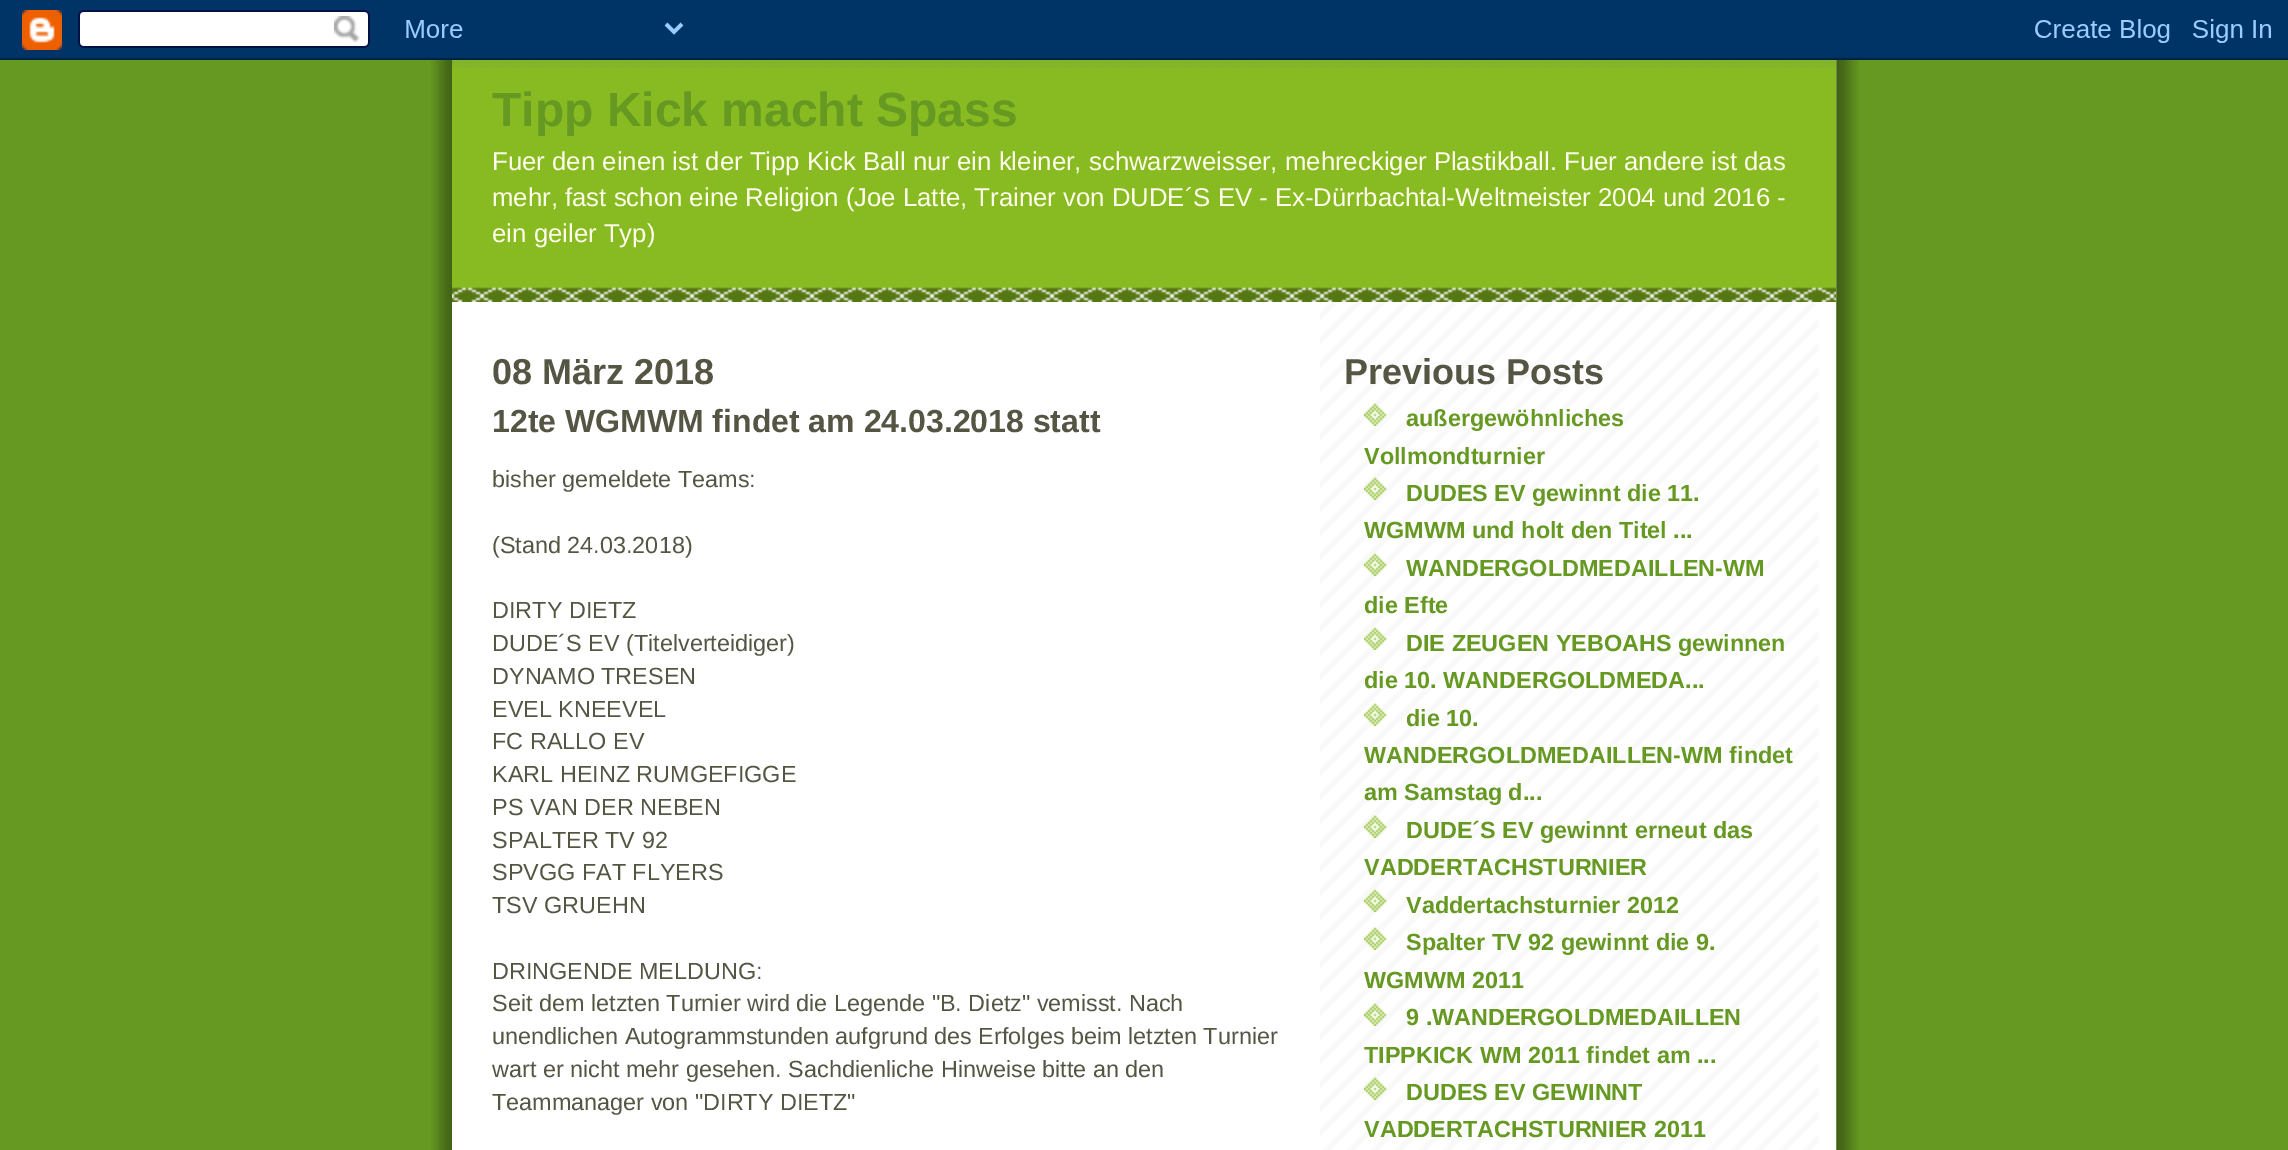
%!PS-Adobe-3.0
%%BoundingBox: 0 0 2288 1150
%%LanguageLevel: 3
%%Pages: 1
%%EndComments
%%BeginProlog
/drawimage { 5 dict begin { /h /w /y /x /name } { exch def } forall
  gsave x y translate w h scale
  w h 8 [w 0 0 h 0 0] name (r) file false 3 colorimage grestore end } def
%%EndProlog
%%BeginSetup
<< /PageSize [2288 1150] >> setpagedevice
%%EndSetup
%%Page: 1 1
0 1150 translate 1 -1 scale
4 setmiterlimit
0.4 0.6 0.133 setrgbcolor
0 0 2288 1150 rectfill
(images/1.raw) 431 60 1428 1090 drawimage
(images/2.raw) 0 0 2288 60 drawimage
1 setgray
452 302 1384 848 rectfill
(images/3.raw) 1320 302 499 848 drawimage
0.533 0.733 0.133 setrgbcolor
452 68 1384 219 rectfill
(images/4.raw) 452 287 1384 15 drawimage
(images/5.raw) 452 60 1384 8 drawimage
(images/6.raw) 1364 403 23 23 drawimage
(images/7.raw) 1364 477 23 23 drawimage
(images/8.raw) 1364 553 23 23 drawimage
(images/9.raw) 1364 627 23 23 drawimage
(images/10.raw) 1364 703 23 23 drawimage
(images/11.raw) 1364 815 23 23 drawimage
(images/8.raw) 1364 889 23 23 drawimage
(images/12.raw) 1364 927 23 23 drawimage
(images/6.raw) 1364 1003 23 23 drawimage
(images/7.raw) 1364 1077 23 23 drawimage
/LiberationSans-Bold [48 0 0 -48 0 0] selectfont
0.4 0.6 0.133 setrgbcolor
492 126 moveto (Tipp Kick macht Spass) show
/LiberationSans-Regular [25.75 0 0 -25.75 0 0] selectfont
1 1 0.933 setrgbcolor
492 170 moveto (Fuer den einen ist der Tipp Kick Ball nur ein kleiner, schwarzweisser, mehreckiger Plastikball. Fuer andere ist das) show
492 206 moveto (mehr, fast schon eine Religion \(Joe Latte, Trainer von DUDE´S EV - Ex-Dürrbachtal-Weltmeister 2004 und 2016 -) show
492 242 moveto (ein geiler Typ\)) show
/LiberationSans-Bold [36 0 0 -36 0 0] selectfont
0.333 0.333 0.267 setrgbcolor
492 384 moveto (08 März 2018) show
/LiberationSans-Bold [32 0 0 -32 0 0] selectfont
492 432 moveto (12te WGMWM findet am 24.03.2018 statt) show
/LiberationSans-Regular [23.4 0 0 -23.4 0 0] selectfont
492 487 moveto (bisher gemeldete Teams:) show
492 553 moveto (\(Stand 24.03.2018\)) show
492 618 moveto (DIRTY DIETZ) show
492 651 moveto (DUDE´S EV \(Titelverteidiger\)) show
492 684 moveto (DYNAMO TRESEN) show
492 717 moveto (EVEL KNEEVEL) show
492 749 moveto (FC RALLO EV) show
492 782 moveto (KARL HEINZ RUMGEFIGGE) show
492 815 moveto (PS VAN DER NEBEN) show
492 848 moveto (SPALTER TV 92) show
492 880 moveto (SPVGG FAT FLYERS) show
492 913 moveto (TSV GRUEHN) show
492 979 moveto (DRINGENDE MELDUNG:) show
492 1011 moveto (Seit dem letzten Turnier wird die Legende "B. Dietz" vemisst. Nach) show
492 1044 moveto (unendlichen Autogrammstunden aufgrund des Erfolges beim letzten Turnier) show
492 1077 moveto (wart er nicht mehr gesehen. Sachdienliche Hinweise bitte an den) show
492 1110 moveto (Teammanager von "DIRTY DIETZ") show
/LiberationSans-Bold [36 0 0 -36 0 0] selectfont
1344 384 moveto (Previous Posts) show
/LiberationSans-Bold [23.4 0 0 -23.4 0 0] selectfont
0.4 0.6 0.133 setrgbcolor
1406 426 moveto (außergewöhnliches) show
1364 464 moveto (Vollmondturnier) show
1406 501 moveto (DUDES EV gewinnt die 11.) show
1364 538 moveto (WGMWM und holt den Titel ...) show
1406 576 moveto (WANDERGOLDMEDAILLEN-WM) show
1364 613 moveto (die Efte) show
1406 651 moveto (DIE ZEUGEN YEBOAHS gewinnen) show
1364 688 moveto (die 10. WANDERGOLDMEDA...) show
1406 726 moveto (die 10.) show
1364 763 moveto (WANDERGOLDMEDAILLEN-WM findet) show
1364 800 moveto (am Samstag d...) show
1406 838 moveto (DUDE´S EV gewinnt erneut das) show
1364 875 moveto (VADDERTACHSTURNIER) show
1406 913 moveto (Vaddertachsturnier 2012) show
1406 950 moveto (Spalter TV 92 gewinnt die 9.) show
1364 988 moveto (WGMWM 2011) show
1406 1025 moveto (9 .WANDERGOLDMEDAILLEN) show
1364 1063 moveto (TIPPKICK WM 2011 findet am ...) show
1406 1100 moveto (DUDES EV GEWINNT) show
1364 1137 moveto (VADDERTACHSTURNIER 2011) show
showpage
%%EOF
